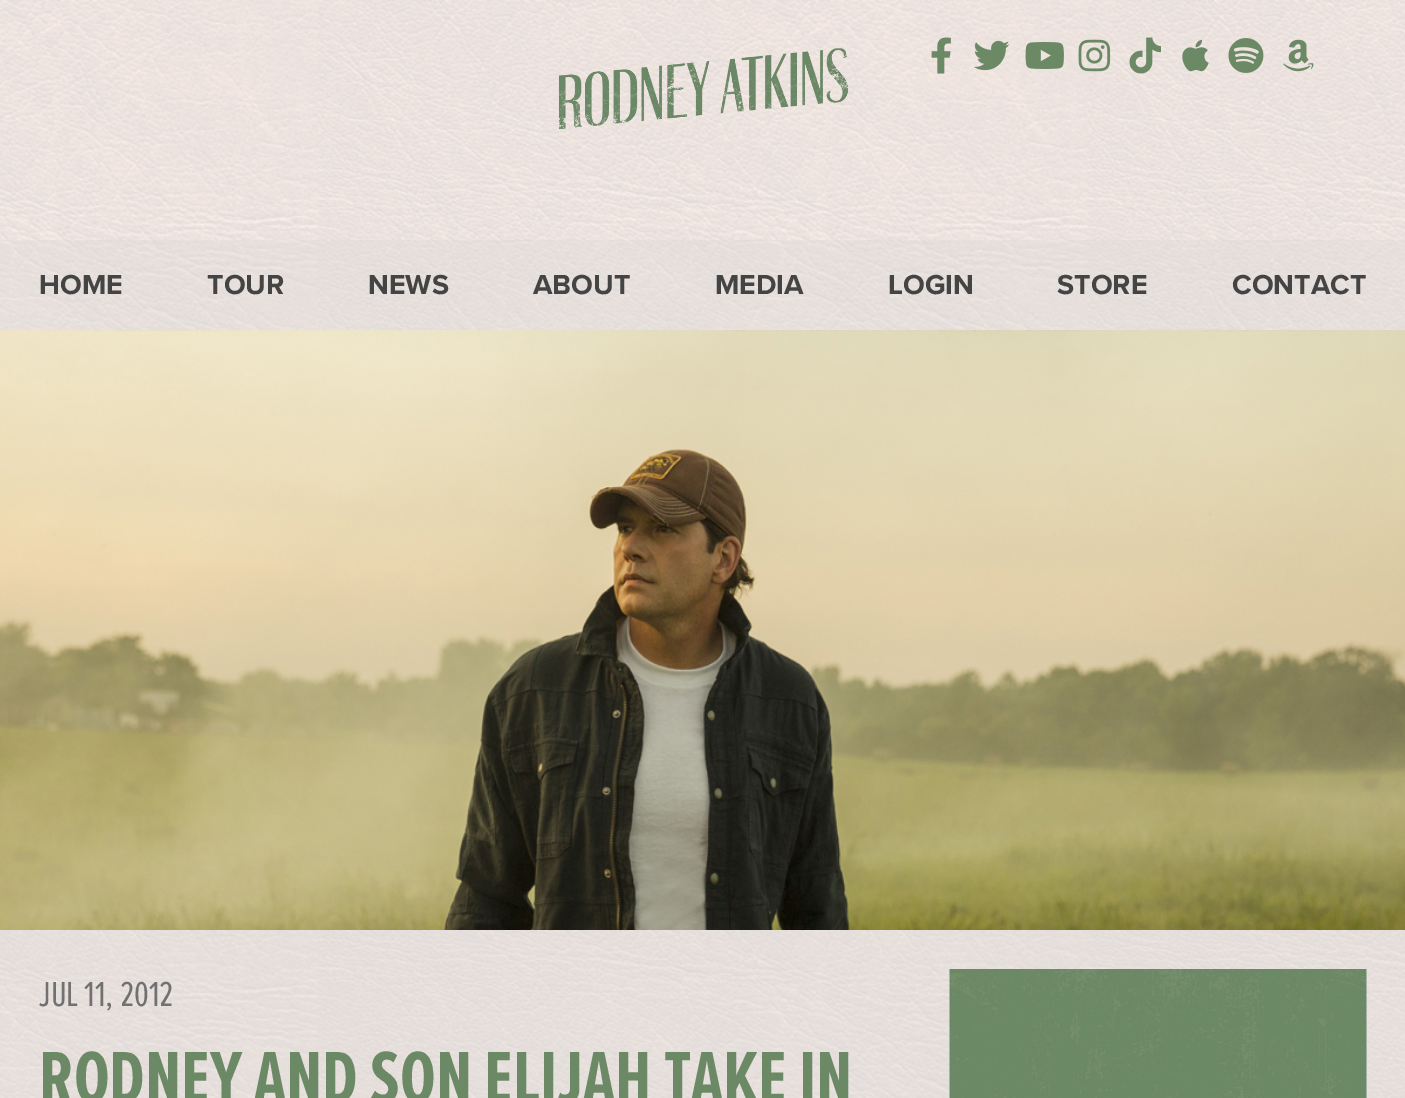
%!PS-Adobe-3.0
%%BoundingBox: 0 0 1405 1098
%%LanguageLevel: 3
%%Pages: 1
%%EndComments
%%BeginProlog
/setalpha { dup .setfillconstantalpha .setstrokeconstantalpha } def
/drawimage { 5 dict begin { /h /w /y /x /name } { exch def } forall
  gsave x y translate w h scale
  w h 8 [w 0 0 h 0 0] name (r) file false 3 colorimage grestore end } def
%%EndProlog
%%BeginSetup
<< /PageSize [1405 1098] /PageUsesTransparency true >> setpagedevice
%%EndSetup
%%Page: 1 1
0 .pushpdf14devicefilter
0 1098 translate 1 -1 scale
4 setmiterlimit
1 setgray
0 0 1405 1098 rectfill
(images/1.raw) 0 930 1405 168 drawimage
(images/2.raw) 0 0 1405 330 drawimage
0.3 setalpha
0.843 setgray
0 240 1405 90 rectfill
1 setalpha
(images/3.raw) 558 48 291 81 drawimage
(images/4.raw) 931 37 20 37 drawimage
(images/5.raw) 973 40 37 31 drawimage
(images/6.raw) 1025 42 39 27 drawimage
(images/7.raw) 1078 39 33 33 drawimage
(images/8.raw) 1129 37 32 37 drawimage
(images/9.raw) 1182 39 27 33 drawimage
(images/10.raw) 1228 38 36 35 drawimage
(images/11.raw) 1283 39 31 33 drawimage
(images/12.raw) 0 330 1405 600 drawimage
(images/13.raw) 949 969 418 129 drawimage
/ProximaNova-Bold [28.5 0 0 -28.5 0 0] selectfont
0.267 setgray
39 294 moveto (HOME) show
207 294 moveto (TOUR) show
368 294 moveto (NEWS) show
533 294 moveto (ABOUT) show
715 294 moveto (MEDIA) show
888 294 moveto (LOGIN) show
1057 294 moveto (STORE) show
1232 294 moveto (CONTACT) show
/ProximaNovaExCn-Regular [36 0 0 -36 0 0] selectfont
0.443 setgray
39 1006 moveto (JUL 11, 2012) show
/ProximaNovaExCn-Bold [75 0 0 -75 0 0] selectfont
0.424 0.537 0.4 setrgbcolor
39 1102 moveto (RODNEY AND SON ELIJAH TAKE IN) show
.poppdf14devicefilter showpage
%%EOF
